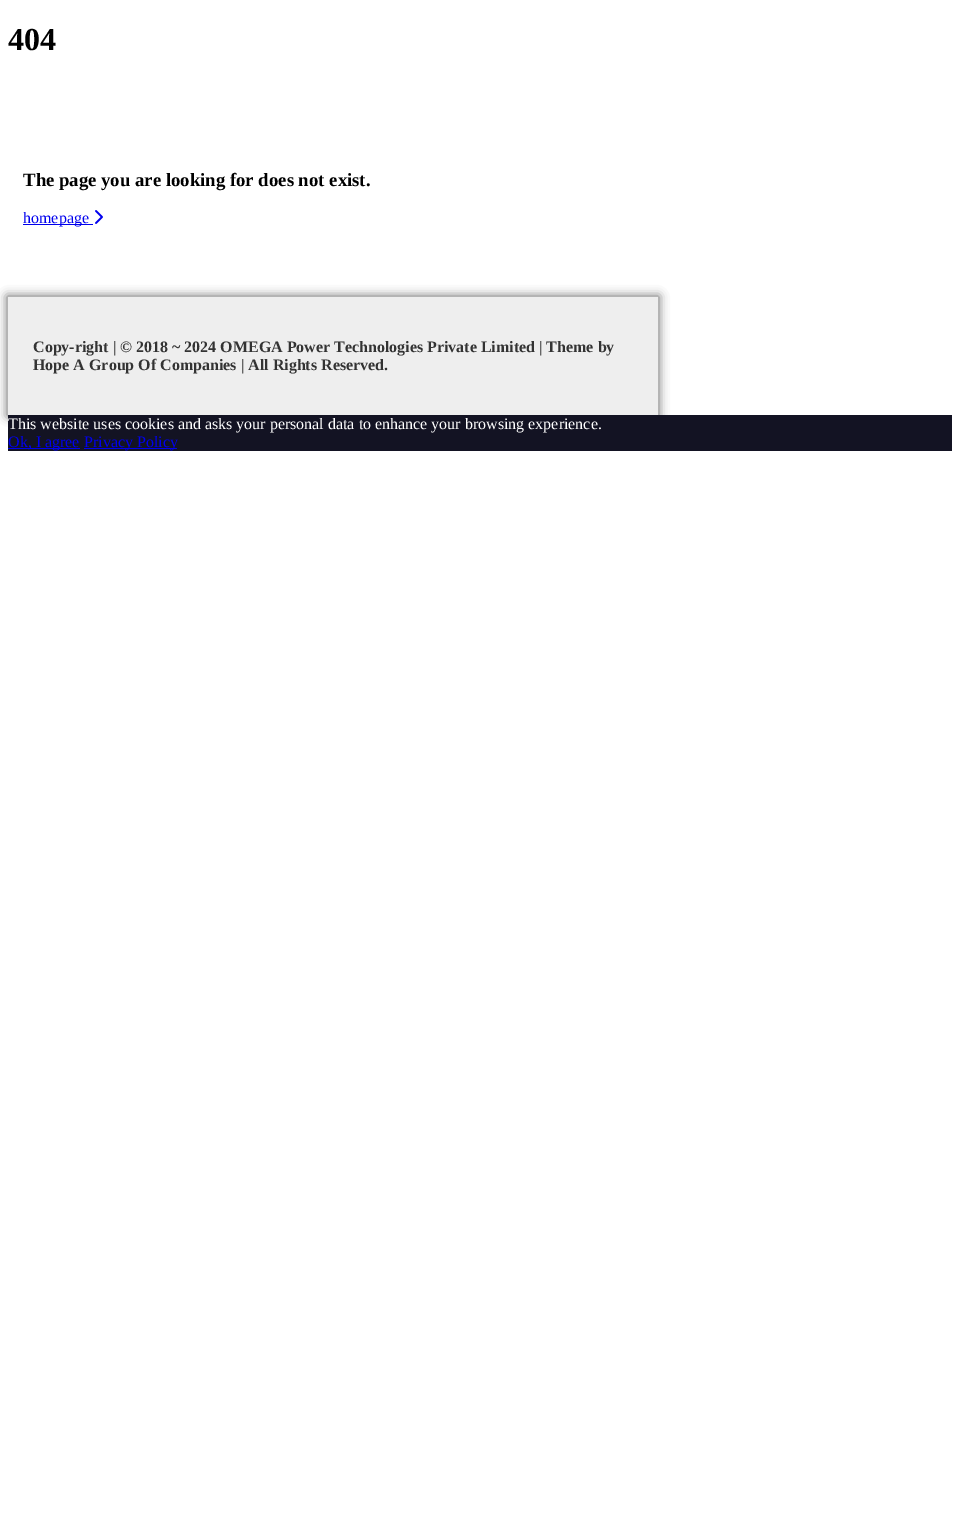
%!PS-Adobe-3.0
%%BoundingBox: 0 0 960 1532
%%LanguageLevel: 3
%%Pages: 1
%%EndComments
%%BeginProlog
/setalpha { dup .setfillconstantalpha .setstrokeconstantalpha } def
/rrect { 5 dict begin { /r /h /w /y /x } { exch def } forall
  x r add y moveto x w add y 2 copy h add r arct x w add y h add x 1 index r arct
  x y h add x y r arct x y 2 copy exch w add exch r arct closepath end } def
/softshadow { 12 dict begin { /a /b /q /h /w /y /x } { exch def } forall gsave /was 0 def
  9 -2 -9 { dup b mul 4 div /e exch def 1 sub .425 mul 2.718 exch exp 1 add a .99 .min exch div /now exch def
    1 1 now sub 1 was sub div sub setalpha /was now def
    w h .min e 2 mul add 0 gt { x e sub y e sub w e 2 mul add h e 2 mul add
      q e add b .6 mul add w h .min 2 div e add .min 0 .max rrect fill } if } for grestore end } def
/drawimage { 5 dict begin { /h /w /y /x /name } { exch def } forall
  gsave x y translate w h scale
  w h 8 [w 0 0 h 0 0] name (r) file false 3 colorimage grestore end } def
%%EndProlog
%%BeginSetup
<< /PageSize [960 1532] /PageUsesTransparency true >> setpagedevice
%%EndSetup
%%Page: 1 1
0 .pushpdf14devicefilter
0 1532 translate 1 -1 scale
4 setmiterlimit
1 setgray
0 0 960 1532 rectfill
0 0 0.933 setrgbcolor
23 224 70 1 rectfill
(images/1.raw) 95 210 8 14 drawimage
0.4 setgray
7 296 652 120 0 5 1 softshadow
0.933 setgray
8 297 650 118 rectfill
0.075 0.075 0.137 setrgbcolor
8 415 944 36 rectfill
0 0 0.933 setrgbcolor
8 448 72 1 rectfill
84 448 93 1 rectfill
/LiberationSerif-Bold [32 0 0 -32 0 0] selectfont
0 setgray
8 50 moveto (404) show
/LiberationSerif-Bold [18.75 0 0 -18.75 0 0] selectfont
23 186 moveto (The page you are looking for does not exist.) show
/LiberationSerif-Regular [16 0 0 -16 0 0] selectfont
0 0 0.933 setrgbcolor
23 223 moveto (homepage) show
/LiberationSerif-Bold [16 0 0 -16 0 0] selectfont
0.2 setgray
33 352 moveto (Copy-right | © 2018 ~ 2024 OMEGA Power Technologies Private Limited | Theme by) show
33 370 moveto (Hope A Group Of Companies | All Rights Reserved.) show
/LiberationSerif-Regular [16 0 0 -16 0 0] selectfont
1 setgray
8 429 moveto (This website uses cookies and asks your personal data to enhance your browsing experience.) show
0 0 0.933 setrgbcolor
8 447 moveto (Ok, I agree) show
84 447 moveto (Privacy Policy) show
.poppdf14devicefilter showpage
%%EOF
